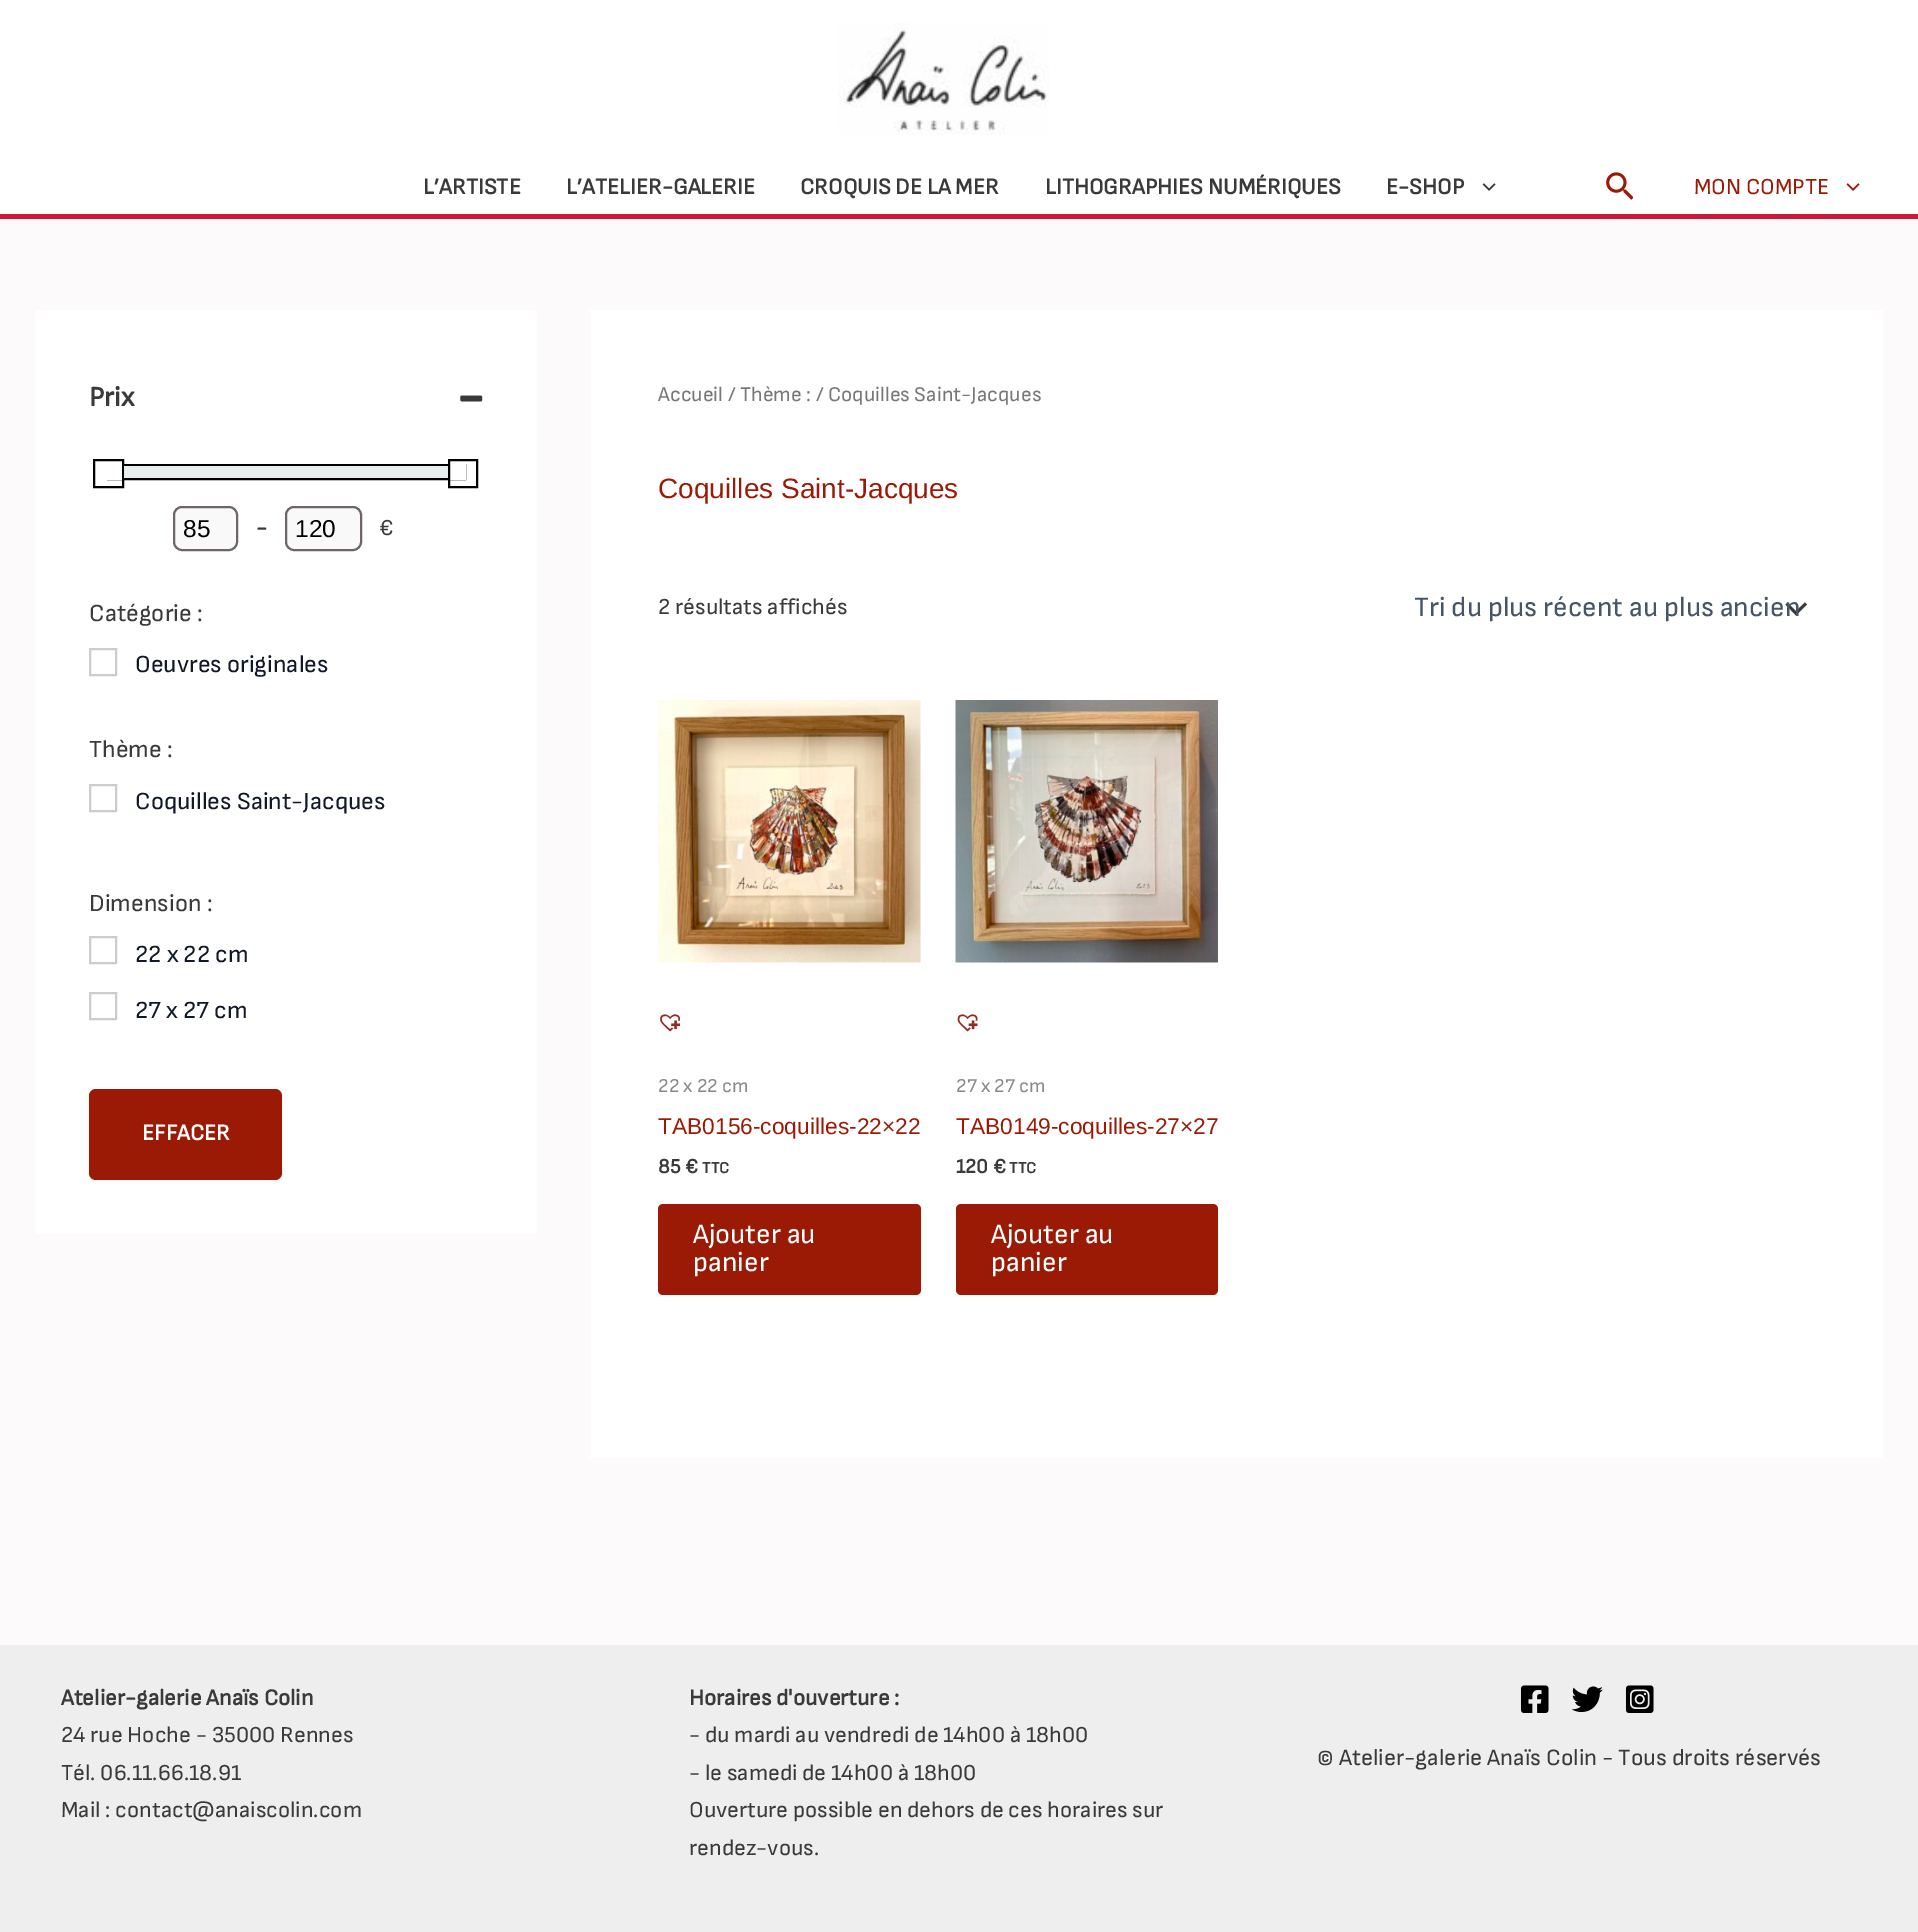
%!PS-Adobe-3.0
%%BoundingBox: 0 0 1918 1932
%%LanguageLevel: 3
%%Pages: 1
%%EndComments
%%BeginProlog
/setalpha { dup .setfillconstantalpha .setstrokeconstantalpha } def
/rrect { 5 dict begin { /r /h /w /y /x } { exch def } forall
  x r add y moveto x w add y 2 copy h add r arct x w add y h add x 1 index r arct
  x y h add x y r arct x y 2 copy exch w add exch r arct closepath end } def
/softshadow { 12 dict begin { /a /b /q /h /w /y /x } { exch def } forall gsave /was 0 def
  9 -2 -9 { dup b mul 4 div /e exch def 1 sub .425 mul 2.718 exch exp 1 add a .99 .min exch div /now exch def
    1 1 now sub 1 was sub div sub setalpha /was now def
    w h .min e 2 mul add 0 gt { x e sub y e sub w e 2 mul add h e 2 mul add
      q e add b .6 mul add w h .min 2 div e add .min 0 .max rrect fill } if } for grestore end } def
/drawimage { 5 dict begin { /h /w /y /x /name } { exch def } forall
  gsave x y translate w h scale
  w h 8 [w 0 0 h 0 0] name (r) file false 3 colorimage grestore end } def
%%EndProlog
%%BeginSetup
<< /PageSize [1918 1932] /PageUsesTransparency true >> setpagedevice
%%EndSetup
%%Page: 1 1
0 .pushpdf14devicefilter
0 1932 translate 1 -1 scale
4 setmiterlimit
0.988 0.98 0.98 setrgbcolor
0 0 1918 1932 rectfill
1 setgray
0 0 1918 214 rectfill
(images/1.raw) 838 23 211 112 drawimage
0.8 0.098 0.224 setrgbcolor
0 214 1918 5 rectfill
(images/2.raw) 1482 183 14 8 drawimage
(images/3.raw) 1606 172 27 28 drawimage
(images/4.raw) 1846 183 14 8 drawimage
1 setgray
35 310 502 924 rectfill
(images/5.raw) 460 395 23 7 drawimage
0 setgray
2 setlinewidth
108 465 357 14 rectstroke
1 setgray
107 464 15 16 rectfill
0 setgray
94 460 29 27 rectstroke
0.91 0.929 0.929 setrgbcolor
124 466 324 12 rectfill
1 setgray
450 464 16 16 rectfill
0 setgray
449 460 28 27 rectstroke
0.976 setgray
174 507 63 43 8 rrect gsave fill grestore
0.431 0.4 0.4 setrgbcolor
stroke
0.976 setgray
286 507 75 43 8 rrect gsave fill grestore
0.431 0.4 0.4 setrgbcolor
stroke
0.8 setgray
90 649 26 26 rectstroke
90 785 26 26 rectstroke
90 937 26 26 rectstroke
90 993 26 26 rectstroke
0 setgray
89 1090 193 91 7 2 0.05 softshadow
0.608 0.102 0.024 setrgbcolor
89 1089 193 91 7 rrect fill
1 setgray
590 310 1293 1148 rectfill
0.227 setgray
newpath 1785.5 604.5 moveto 1796 615.5 lineto 1807 604.5 lineto 1805 602.5 lineto 1796 611 lineto 1787.5 602.5 lineto closepath fill
(images/6.raw) 658 700 263 263 drawimage
(images/7.raw) 660 1014 20 18 drawimage
0.608 0.102 0.024 setrgbcolor
658 1204 263 91 5 rrect fill
(images/8.raw) 955 700 263 263 drawimage
(images/9.raw) 957 1014 21 18 drawimage
956 1204 262 91 5 rrect fill
0.933 setgray
0 1645 1918 287 rectfill
(images/10.raw) 1520 1685 29 28 drawimage
(images/11.raw) 1572 1686 31 26 drawimage
(images/12.raw) 1625 1685 29 28 drawimage
/SofiaSans-Bold [22.75 0 0 -22.75 0 0] selectfont
0.227 setgray
423 194 moveto (L’ARTISTE) show
566 194 moveto (L’ATELIER-GALERIE) show
800 194 moveto (CROQUIS DE LA MER) show
1045 194 moveto (LITHOGRAPHIES NUMÉRIQUES) show
1386 194 moveto (E-SHOP) show
/SofiaSans-Regular [22.75 0 0 -22.75 0 0] selectfont
0.608 0.102 0.024 setrgbcolor
1694 194 moveto (MON COMPTE) show
/SofiaSans-Bold [28 0 0 -28 0 0] selectfont
0.227 setgray
89 406 moveto (Prix) show
/LiberationSans-Regular [24.5 0 0 -24.5 0 0] selectfont
0 setgray
183 537 moveto (85) show
/SofiaSans-Bold [22.75 0 0 -22.75 0 0] selectfont
0.227 setgray
256 535 moveto (-) show
/LiberationSans-Regular [24.5 0 0 -24.5 0 0] selectfont
0 setgray
295 537 moveto (120) show
/SofiaSans-Regular [22.75 0 0 -22.75 0 0] selectfont
0.227 setgray
379 535 moveto (€) show
/SofiaSans-Regular [24.5 0 0 -24.5 0 0] selectfont
89 621 moveto (Catégorie :) show
0.067 0.094 0.153 setrgbcolor
135 672 moveto (Oeuvres originales) show
0.227 setgray
89 757 moveto (Thème :) show
0.067 0.094 0.153 setrgbcolor
135 809 moveto (Coquilles Saint-Jacques) show
0.227 setgray
89 911 moveto (Dimension :) show
0.067 0.094 0.153 setrgbcolor
135 962 moveto (22 x 22 cm) show
135 1018 moveto (27 x 27 cm) show
/SofiaSans-Bold [22.75 0 0 -22.75 0 0] selectfont
1 setgray
142 1140 moveto (EFFACER) show
/SofiaSans-Regular [20.9 0 0 -20.9 0 0] selectfont
0.467 setgray
658 401 moveto (Accueil / Thème : / Coquilles Saint-Jacques) show
/LiberationSans-Regular [28 0 0 -28 0 0] selectfont
0.608 0.102 0.024 setrgbcolor
658 498 moveto (Coquilles Saint-Jacques) show
/SofiaSans-Regular [22.75 0 0 -22.75 0 0] selectfont
0.227 setgray
658 614 moveto (2 résultats affichés) show
/SofiaSans-Regular [28 0 0 -28 0 0] selectfont
0.278 0.333 0.412 setrgbcolor
1414 616 moveto (Tri du plus récent au plus ancien) show
/SofiaSans-Regular [19.5 0 0 -19.5 0 0] selectfont
0.537 setgray
658 1092 moveto (22 x 22 cm) show
/LiberationSans-Regular [22.75 0 0 -22.75 0 0] selectfont
0.608 0.102 0.024 setrgbcolor
658 1134 moveto (TAB0156-coquilles-22×22) show
/SofiaSans-Bold [20.5 0 0 -20.5 0 0] selectfont
0.227 setgray
658 1173 moveto (85 €) show
/SofiaSans-Bold [16 0 0 -16 0 0] selectfont
702 1173 moveto (TTC) show
/SofiaSans-Regular [28 0 0 -28 0 0] selectfont
1 setgray
693 1243 moveto (Ajouter au) show
693 1271 moveto (panier) show
/SofiaSans-Regular [19.5 0 0 -19.5 0 0] selectfont
0.537 setgray
956 1092 moveto (27 x 27 cm) show
/LiberationSans-Regular [22.75 0 0 -22.75 0 0] selectfont
0.608 0.102 0.024 setrgbcolor
956 1134 moveto (TAB0149-coquilles-27×27) show
/SofiaSans-Bold [20.5 0 0 -20.5 0 0] selectfont
0.227 setgray
956 1173 moveto (120 €) show
/SofiaSans-Bold [16 0 0 -16 0 0] selectfont
1009 1173 moveto (TTC) show
/SofiaSans-Regular [28 0 0 -28 0 0] selectfont
1 setgray
991 1243 moveto (Ajouter au) show
991 1271 moveto (panier) show
/SofiaSans-Bold [22.75 0 0 -22.75 0 0] selectfont
0.227 setgray
61 1705 moveto (Atelier-galerie Anaïs Colin) show
/SofiaSans-Regular [22.75 0 0 -22.75 0 0] selectfont
61 1742 moveto (24 rue Hoche - 35000 Rennes) show
61 1780 moveto (Tél. 06.11.66.18.91) show
61 1817 moveto (Mail : contact@anaiscolin.com) show
/SofiaSans-Bold [22.75 0 0 -22.75 0 0] selectfont
689 1705 moveto (Horaires d'ouverture :) show
/SofiaSans-Regular [22.75 0 0 -22.75 0 0] selectfont
689 1742 moveto (- du mardi au vendredi de 14h00 à 18h00) show
689 1780 moveto (- le samedi de 14h00 à 18h00) show
689 1817 moveto (Ouverture possible en dehors de ces horaires sur) show
689 1855 moveto (rendez-vous.) show
/SofiaSans-Regular [23.3 0 0 -23.3 0 0] selectfont
1317 1765 moveto (© Atelier-galerie Anaïs Colin - Tous droits réservés) show
.poppdf14devicefilter showpage
%%EOF
